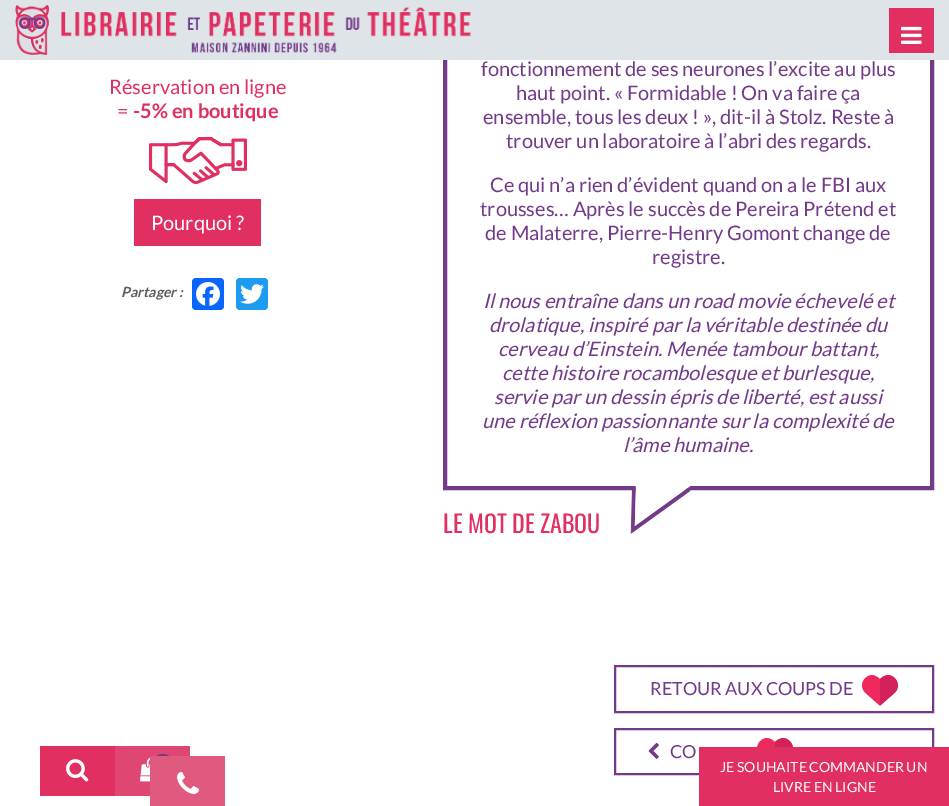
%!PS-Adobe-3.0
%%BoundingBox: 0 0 949 806
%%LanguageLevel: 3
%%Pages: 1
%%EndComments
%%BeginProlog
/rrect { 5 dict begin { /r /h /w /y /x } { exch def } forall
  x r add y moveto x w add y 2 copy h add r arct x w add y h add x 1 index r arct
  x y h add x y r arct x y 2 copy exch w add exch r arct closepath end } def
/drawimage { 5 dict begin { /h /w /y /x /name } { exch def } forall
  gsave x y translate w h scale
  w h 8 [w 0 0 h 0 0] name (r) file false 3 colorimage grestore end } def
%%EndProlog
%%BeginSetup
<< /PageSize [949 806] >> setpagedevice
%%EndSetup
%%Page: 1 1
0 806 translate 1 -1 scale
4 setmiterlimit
1 setgray
0 0 949 806 rectfill
0.451 0.227 0.541 setrgbcolor
4 setlinewidth
445 -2 487 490 rectstroke
0.871 0.894 0.91 setrgbcolor
0 0 949 60 rectfill
(images/1.raw) 15 5 456 50 drawimage
0.882 0.184 0.38 setrgbcolor
40 746 75 50 rectfill
(images/2.raw) 66 759 23 23 drawimage
0.875 0.275 0.443 setrgbcolor
115 746 75 50 rectfill
(images/3.raw) 140 757 10 25 drawimage
0.451 0.227 0.541 setrgbcolor
newpath 163 764 10 0 360 arc closepath fill
0.882 0.184 0.38 setrgbcolor
889 8 45 45 rectfill
(images/4.raw) 901 26 21 18 drawimage
0.878 0.349 0.498 setrgbcolor
150 756 75 50 rectfill
(images/5.raw) 177 772 22 22 drawimage
(images/6.raw) 149 137 98 47 drawimage
0.882 0.184 0.38 setrgbcolor
134 199 127 47 rectfill
0.031 0.4 1 setrgbcolor
192 278 32 32 4 rrect fill
(images/7.raw) 196 282 24 24 drawimage
0.114 0.608 0.941 setrgbcolor
236 278 32 32 4 rrect fill
(images/8.raw) 240 284 24 20 drawimage
(images/9.raw) 630 486 61 48 drawimage
0.451 0.227 0.541 setrgbcolor
2 setlinewidth
615 666 318 46 rectstroke
(images/10.raw) 862 675 36 31 drawimage
615 729 318 45 rectstroke
(images/11.raw) 648 742 11 17 drawimage
(images/12.raw) 757 738 36 9 drawimage
0.882 0.184 0.38 setrgbcolor
699 747 250 59 rectfill
/Lato-Regular [20 0 0 -20 0 0] selectfont
109 94 moveto (Réservation en ligne) show
117 118 moveto (=) show
/Lato-Bold [20 0 0 -20 0 0] selectfont
133 118 moveto (-5% en boutique) show
/Lato-Regular [20 0 0 -20 0 0] selectfont
1 setgray
151 230 moveto (Pourquoi ?) show
/Lato-BoldItalic [14 0 0 -14 0 0] selectfont
0.369 0.365 0.365 setrgbcolor
121 297 moveto (Partager :) show
/Lato-Regular [20 0 0 -20 0 0] selectfont
0.451 0.227 0.541 setrgbcolor
481 76 moveto (fonctionnement de ses neurones l’excite au plus) show
516 100 moveto (haut point. « Formidable ! On va faire ça) show
483 124 moveto (ensemble, tous les deux ! », dit-il à Stolz. Reste à) show
506 148 moveto (trouver un laboratoire à l’abri des regards.) show
490 192 moveto (Ce qui n’a rien d’évident quand on a le FBI aux) show
480 216 moveto (trousses… Après le succès de Pereira Prétend et) show
485 240 moveto (de Malaterre, Pierre-Henry Gomont change de) show
652 264 moveto (registre.) show
/Lato-Italic [20 0 0 -20 0 0] selectfont
483 308 moveto (Il nous entraîne dans un road movie échevelé et) show
489 332 moveto (drolatique, inspiré par la véritable destinée du) show
498 356 moveto (cerveau d’Einstein. Menée tambour battant,) show
502 380 moveto (cette histoire rocambolesque et burlesque,) show
494 404 moveto (servie par un dessin épris de liberté, est aussi) show
482 428 moveto (une réflexion passionnante sur la complexité de) show
623 452 moveto (l’âme humaine.) show
/Oswald-Regular [24 0 0 -24 0 0] selectfont
0.882 0.184 0.38 setrgbcolor
443 533 moveto (LE MOT DE ZABOU) show
/Lato-Regular [18 0 0 -18 0 0] selectfont
0.451 0.227 0.541 setrgbcolor
650 695 moveto (RETOUR AUX COUPS DE) show
670 758 moveto (CO) show
/Lato-Regular [14 0 0 -14 0 0] selectfont
1 setgray
720 772 moveto (JE SOUHAITE COMMANDER UN) show
773 792 moveto (LIVRE EN LIGNE) show
showpage
%%EOF
